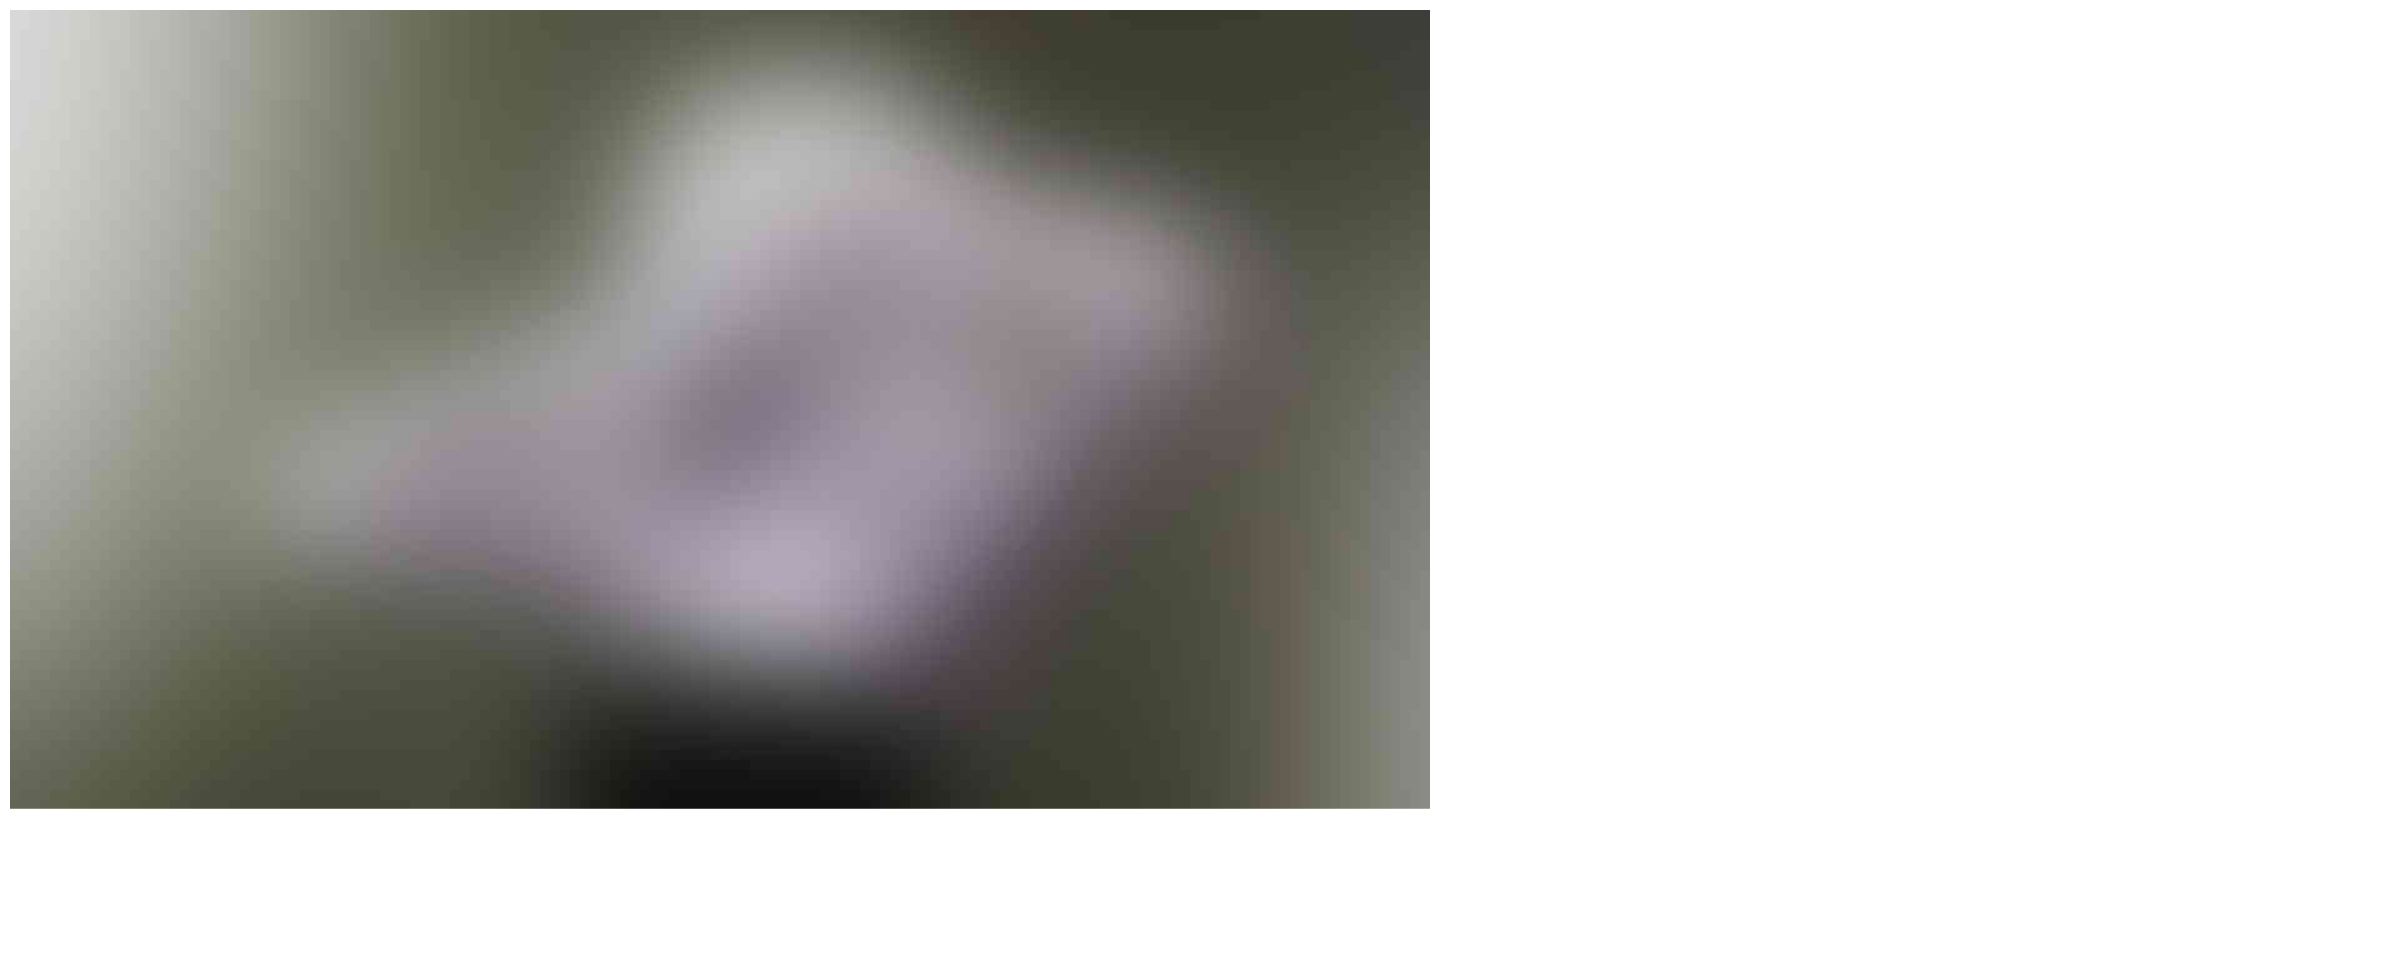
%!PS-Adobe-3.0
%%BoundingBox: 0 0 2386 966
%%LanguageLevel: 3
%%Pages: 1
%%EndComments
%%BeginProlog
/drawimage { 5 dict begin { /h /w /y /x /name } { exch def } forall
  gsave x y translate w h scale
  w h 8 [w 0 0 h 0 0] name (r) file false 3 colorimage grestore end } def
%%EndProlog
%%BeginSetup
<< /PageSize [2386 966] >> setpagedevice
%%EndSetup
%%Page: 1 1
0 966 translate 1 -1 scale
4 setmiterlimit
1 setgray
0 0 2386 966 rectfill
(images/1.raw) 10 10 1420 799 drawimage
showpage
%%EOF
